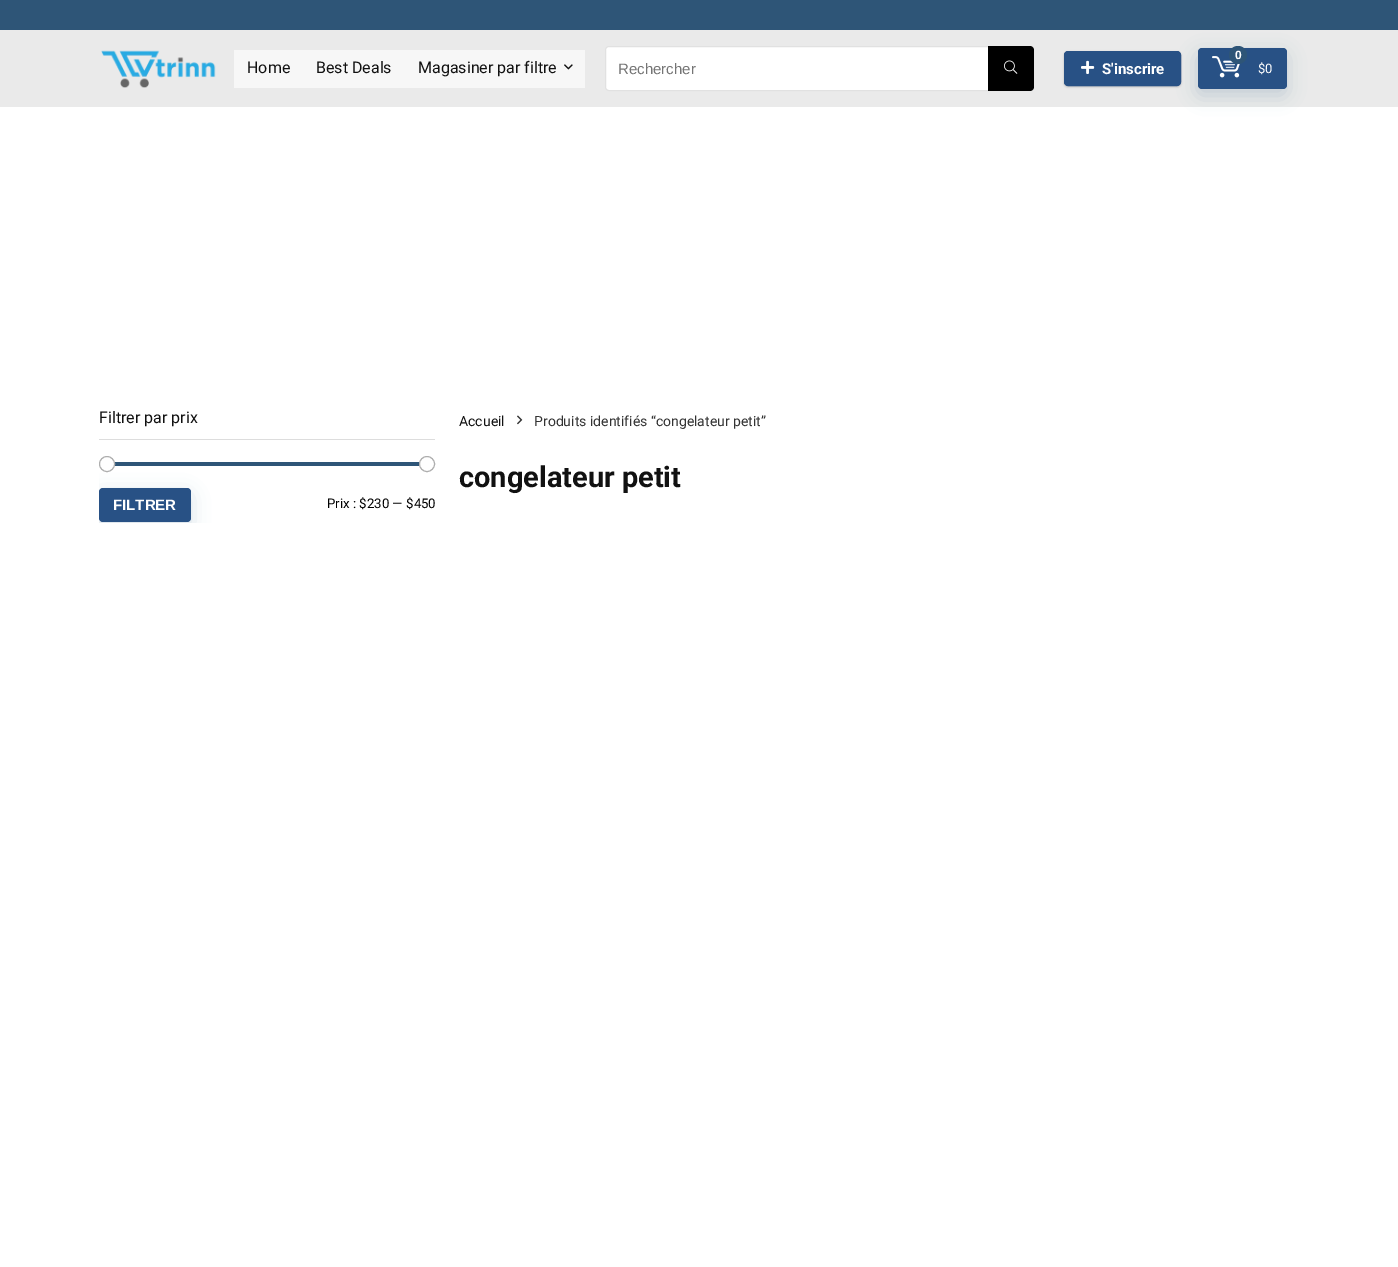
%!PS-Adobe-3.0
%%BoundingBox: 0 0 1398 1267
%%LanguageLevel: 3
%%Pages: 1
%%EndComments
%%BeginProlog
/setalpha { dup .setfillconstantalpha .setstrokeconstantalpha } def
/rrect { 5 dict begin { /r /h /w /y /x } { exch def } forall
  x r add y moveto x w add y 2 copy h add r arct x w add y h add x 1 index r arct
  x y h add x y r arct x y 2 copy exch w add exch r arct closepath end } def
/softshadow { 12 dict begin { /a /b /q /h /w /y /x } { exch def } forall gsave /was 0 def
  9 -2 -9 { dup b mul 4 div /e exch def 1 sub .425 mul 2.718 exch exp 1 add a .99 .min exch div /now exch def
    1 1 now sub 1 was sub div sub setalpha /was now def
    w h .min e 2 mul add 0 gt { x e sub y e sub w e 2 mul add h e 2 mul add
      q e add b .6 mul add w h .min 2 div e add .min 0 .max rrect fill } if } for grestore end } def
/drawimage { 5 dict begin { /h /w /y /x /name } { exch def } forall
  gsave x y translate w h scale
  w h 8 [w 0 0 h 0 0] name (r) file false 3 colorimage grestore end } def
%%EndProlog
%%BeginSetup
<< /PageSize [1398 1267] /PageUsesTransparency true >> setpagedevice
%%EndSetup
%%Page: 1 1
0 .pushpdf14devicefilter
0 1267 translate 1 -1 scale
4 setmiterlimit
1 setgray
0 0 1398 1267 rectfill
0.918 setgray
0 30 1398 77 rectfill
0.18 0.333 0.467 setrgbcolor
0 0 1398 30 rectfill
(images/1.raw) 101 50 115 38 drawimage
0.969 setgray
234 50 351 38 rectfill
(images/2.raw) 564 64 9 6 drawimage
1 setgray
605.5 46.5 428 44 3.5 rrect gsave fill grestore
0.882 setgray
stroke
0 setgray
newpath 988 46 moveto 1030 46 lineto 1032 46 1034 48 1034 50 curveto 1034 87 lineto 1034 89 1032 91 1030 91 curveto 988 91 lineto closepath fill
(images/3.raw) 1004 60 14 14 drawimage
1064 52 117 35 4 1 0.2 softshadow
0.157 0.318 0.522 setrgbcolor
1064.5 51.5 116 34 3.5 rrect gsave fill grestore
stroke
(images/4.raw) 1081 60 14 14 drawimage
1197 54 89 41 4 9.5 0.2 softshadow
1198 48 89 41 4 rrect fill
(images/5.raw) 1212 56 28 22 drawimage
0.18 0.333 0.467 setrgbcolor
newpath 1238 55 9 0 360 arc closepath fill
0.867 setgray
99 439 336 1 rectfill
gsave
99 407 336 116 rectclip
0.157 0.318 0.522 setrgbcolor
98 494 92 34 4 9.5 0.2 softshadow
grestore
0.18 0.333 0.467 setrgbcolor
99 462 336 4 2 rrect fill
1 setgray
newpath 107 464 7.5 0 360 arc closepath gsave fill grestore
0.682 setgray
stroke
1 setgray
newpath 427 464 7.5 0 360 arc closepath gsave fill grestore
0.682 setgray
stroke
0.157 0.318 0.522 setrgbcolor
99 488 92 34 4 rrect fill
(images/6.raw) 517 415 6 10 drawimage
/Roboto-Regular [16 0 0 -16 0 0] selectfont
0.067 setgray
247 73 moveto (Home) show
316 73 moveto (Best Deals) show
418 73 moveto (Magasiner par filtre) show
/LiberationSans-Regular [15 0 0 -15 0 0] selectfont
0.459 setgray
618 74 moveto (Rechercher) show
/Roboto-Bold [15 0 0 -15 0 0] selectfont
1 setgray
1102 74 moveto (S'inscrire) show
/LiberationSans-Bold [12 0 0 -12 0 0] selectfont
1235 59 moveto (0) show
/Roboto-Regular [13 0 0 -13 0 0] selectfont
1258 73 moveto ($0) show
/Roboto-Regular [16 0 0 -16 0 0] selectfont
0.067 setgray
99 423 moveto (Filtrer par prix) show
/LiberationSans-Bold [15 0 0 -15 0 0] selectfont
1 setgray
113 510 moveto (FILTRER) show
/Roboto-Regular [13.25 0 0 -13.25 0 0] selectfont
0 setgray
327 508 moveto (Prix : $230 — $450) show
/Roboto-Regular [14 0 0 -14 0 0] selectfont
0.067 setgray
459 426 moveto (Accueil) show
0.2 setgray
534 426 moveto (Produits identifiés “congelateur petit”) show
/Roboto-Bold [29 0 0 -29 0 0] selectfont
0.067 setgray
459 487 moveto (congelateur petit) show
.poppdf14devicefilter showpage
%%EOF
